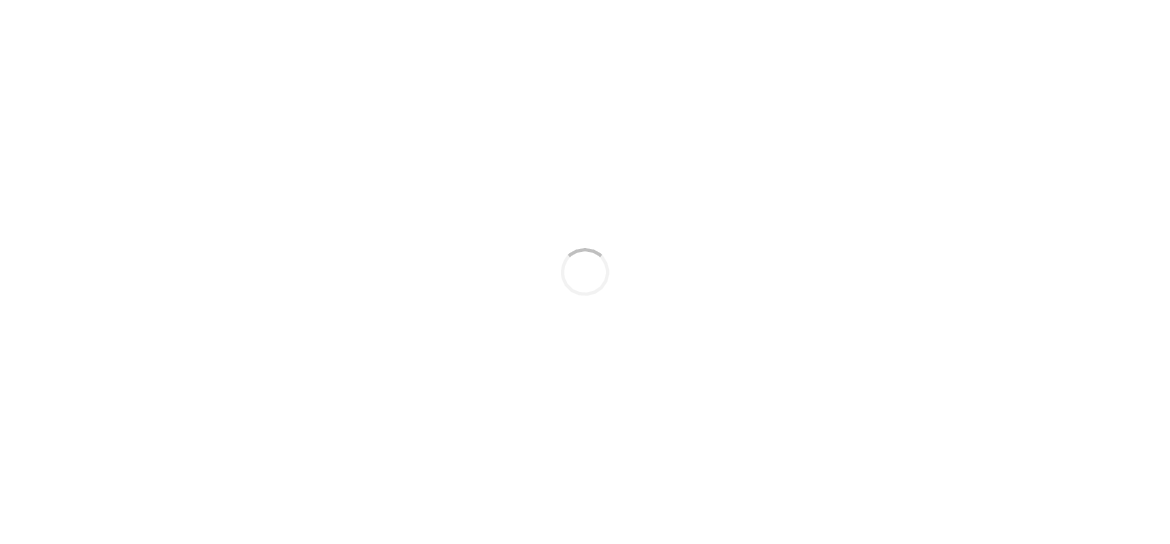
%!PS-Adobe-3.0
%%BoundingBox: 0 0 1170 544
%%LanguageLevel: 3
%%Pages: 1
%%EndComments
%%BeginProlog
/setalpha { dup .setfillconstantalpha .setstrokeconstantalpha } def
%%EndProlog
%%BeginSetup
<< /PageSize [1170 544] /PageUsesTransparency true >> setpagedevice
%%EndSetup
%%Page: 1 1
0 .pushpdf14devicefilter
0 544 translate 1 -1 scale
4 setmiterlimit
1 setgray
0 0 1170 544 rectfill
0.749 setgray
3 setlinewidth
newpath 569 256 moveto 578 247.5 592 247.5 601 256 curveto stroke
0.2 setalpha
newpath 601 256 moveto 605 260.5 607.5 266 607.5 272 curveto 607.5 299 568 302.5 563 276.5 curveto 561.5 269 564 261.5 569 256 curveto stroke
.poppdf14devicefilter showpage
%%EOF
